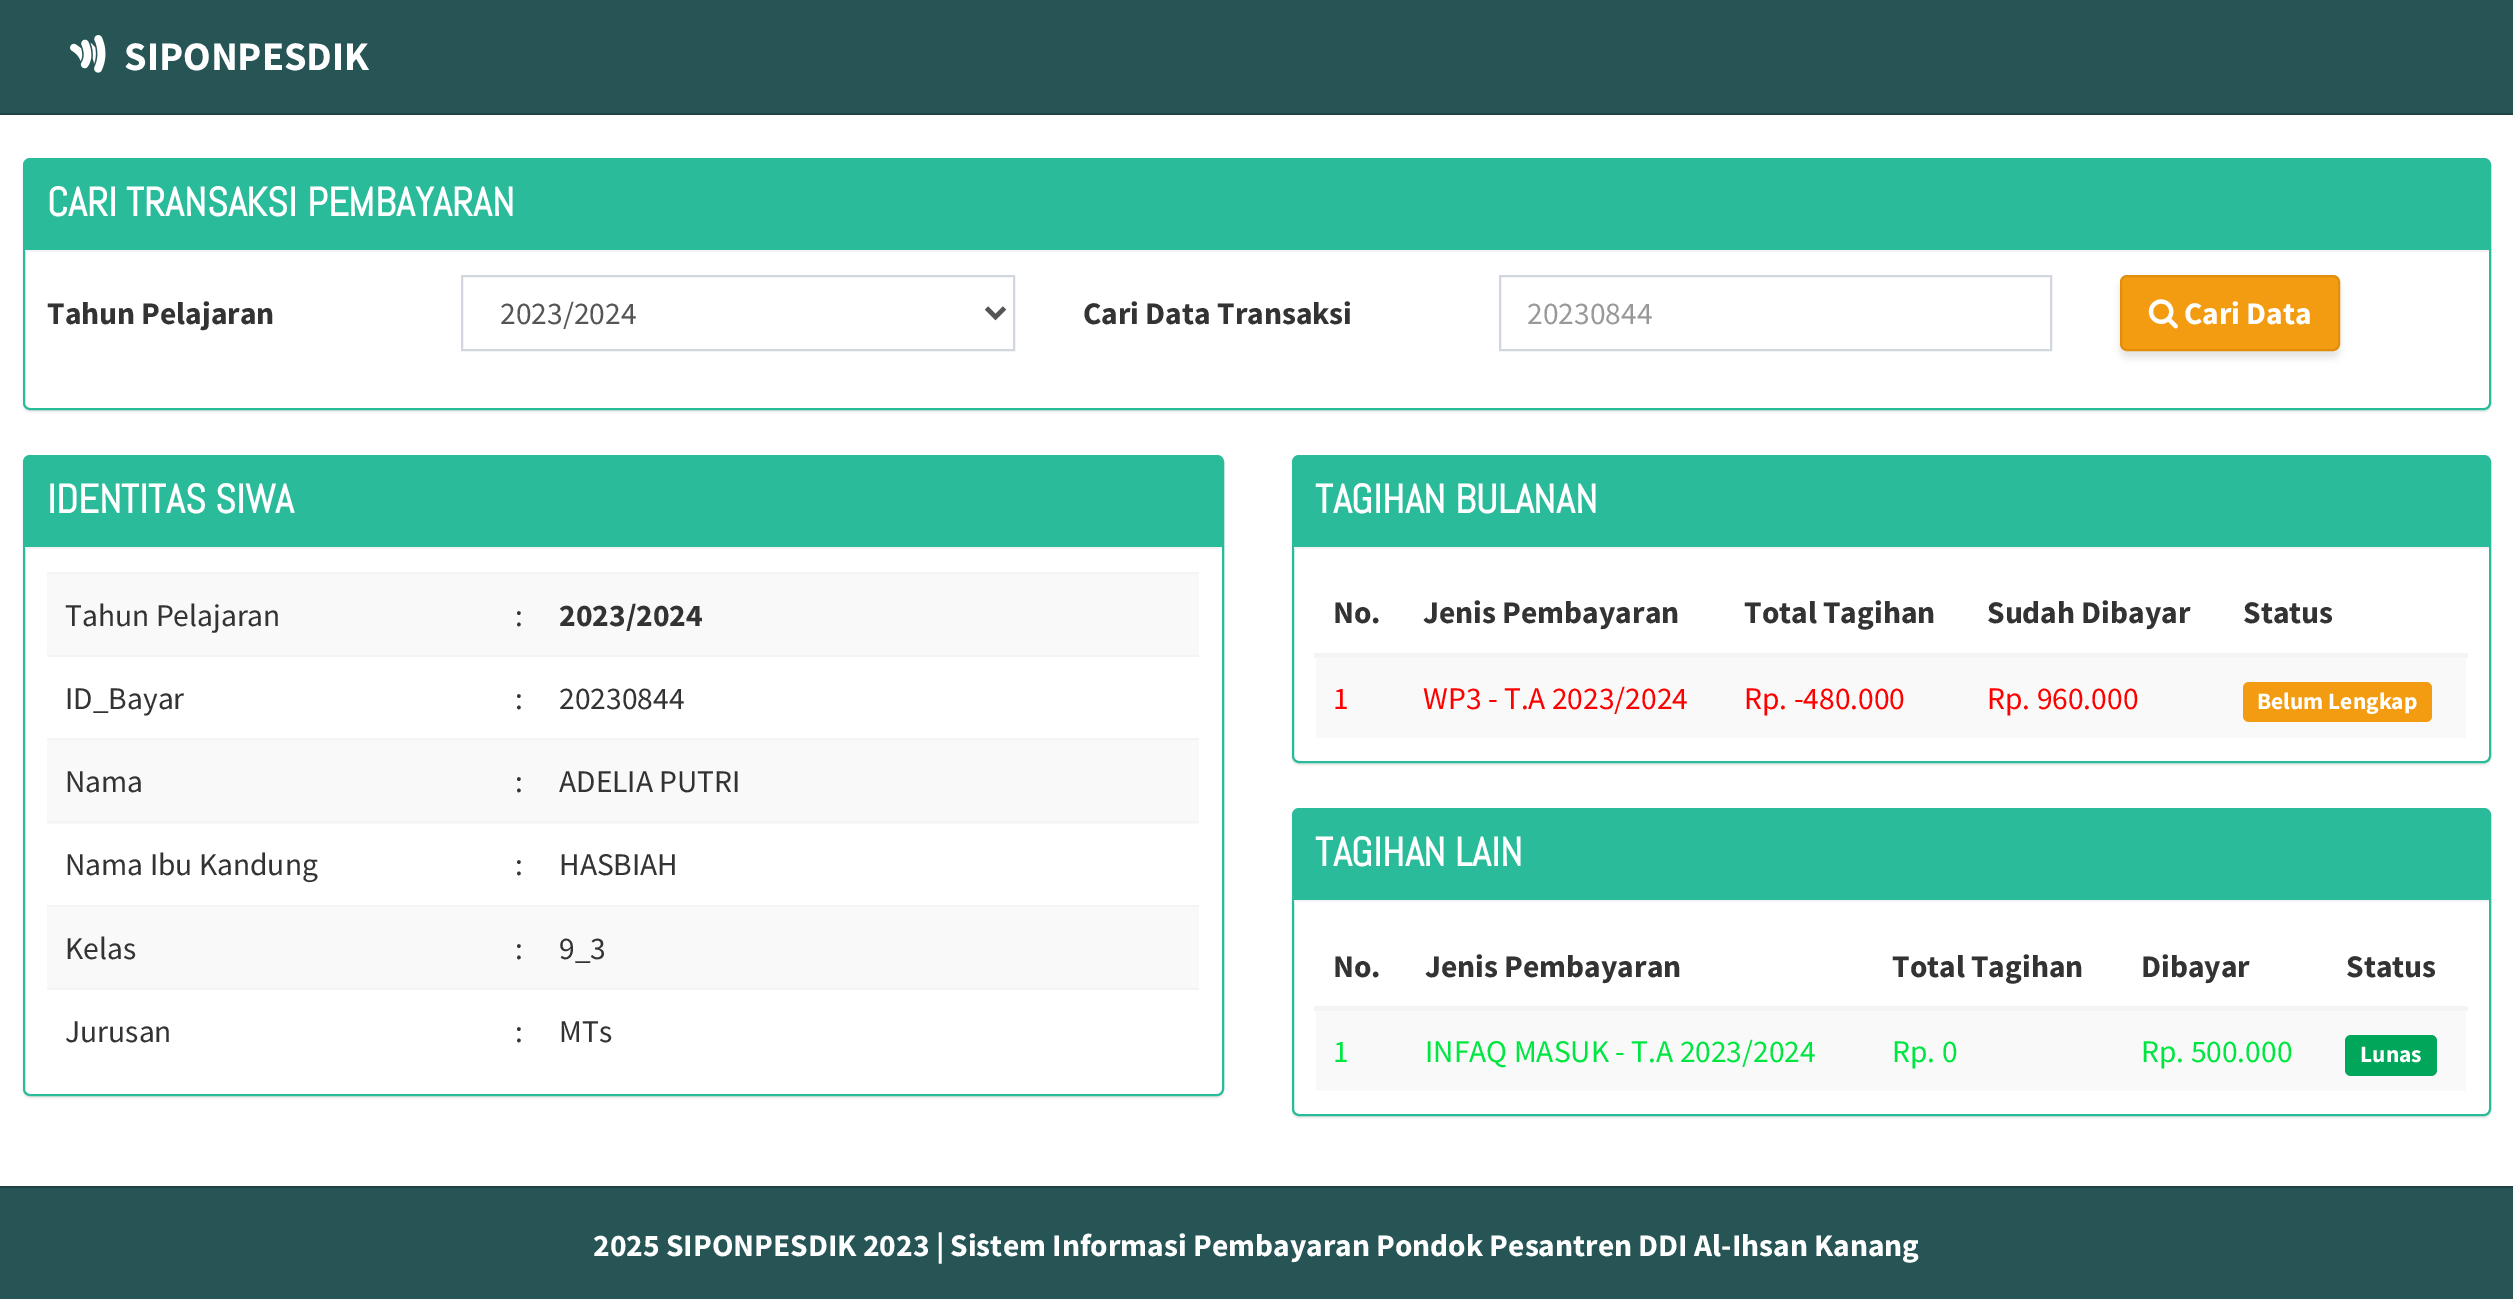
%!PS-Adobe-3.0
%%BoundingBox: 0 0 2513 1299
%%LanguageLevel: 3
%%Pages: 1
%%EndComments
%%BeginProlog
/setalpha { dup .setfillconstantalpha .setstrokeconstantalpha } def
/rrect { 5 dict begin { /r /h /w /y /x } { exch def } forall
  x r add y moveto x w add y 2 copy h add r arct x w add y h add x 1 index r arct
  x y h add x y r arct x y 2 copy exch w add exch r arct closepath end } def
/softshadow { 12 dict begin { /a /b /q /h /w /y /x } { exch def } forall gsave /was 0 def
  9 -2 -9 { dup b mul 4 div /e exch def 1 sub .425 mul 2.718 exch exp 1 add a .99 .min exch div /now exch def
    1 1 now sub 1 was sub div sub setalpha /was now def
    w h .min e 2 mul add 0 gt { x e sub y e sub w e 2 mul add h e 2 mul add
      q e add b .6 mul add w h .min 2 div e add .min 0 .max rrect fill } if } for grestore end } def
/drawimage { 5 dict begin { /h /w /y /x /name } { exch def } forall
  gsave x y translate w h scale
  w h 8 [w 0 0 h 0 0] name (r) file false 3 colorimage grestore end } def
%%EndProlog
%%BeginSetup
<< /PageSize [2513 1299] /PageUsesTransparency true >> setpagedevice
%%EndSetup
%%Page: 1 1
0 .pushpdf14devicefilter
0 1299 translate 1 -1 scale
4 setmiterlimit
1 setgray
0 0 2513 1299 rectfill
0.153 0.333 0.333 setrgbcolor
0 0 2513 113 rectfill
0.122 0.263 0.263 setrgbcolor
0 113 2513 2 rectfill
(images/1.raw) 70 35 36 38 drawimage
0 setgray
23 160 2468 252 7 1 0.1 softshadow
1 setgray
24 159 2466 250 6 rrect gsave fill grestore
0.165 0.733 0.608 setrgbcolor
2 setlinewidth
stroke
25 160 2464 90 rectfill
0.957 setgray
25 250 2464 2 rectfill
0.824 0.839 0.871 setrgbcolor
462 276 552 74 rectstroke
0.333 setgray
4.5 setlinewidth
newpath 986.5 308 moveto 995.5 317 lineto 1004.5 308 lineto stroke
0.824 0.839 0.871 setrgbcolor
2 setlinewidth
1500 276 551 74 rectstroke
0 setgray
2120 281 220 77 7 3.5 0.1 softshadow
0.953 0.612 0.071 setrgbcolor
2121 276 218 74 6 rrect gsave fill grestore
0.878 0.557 0.043 setrgbcolor
stroke
(images/2.raw) 2148 299 30 30 drawimage
0 setgray
23 457 1201 641 7 1 0.1 softshadow
1 setgray
24 456 1199 639 6 rrect gsave fill grestore
0.165 0.733 0.608 setrgbcolor
stroke
25 457 1197 90 rectfill
0.957 setgray
25 547 1197 2 rectfill
0.976 setgray
47 574 1152 81 rectfill
0.957 setgray
47 572 1152 2 rectfill
47 655 1152 2 rectfill
0.976 setgray
47 740 1152 84 rectfill
0.957 setgray
47 738 1152 2 rectfill
47 821 1152 2 rectfill
0.976 setgray
47 907 1152 81 rectfill
0.957 setgray
47 905 1152 2 rectfill
47 988 1152 2 rectfill
0 setgray
1292 457 1199 308 7 1 0.1 softshadow
1 setgray
1293 456 1197 306 6 rrect gsave fill grestore
0.165 0.733 0.608 setrgbcolor
stroke
1294 457 1195 90 rectfill
0.957 setgray
1294 547 1195 2 rectfill
1314 653 1154 5 rectfill
0.976 setgray
1316 658 1150 80 rectfill
0.953 0.612 0.071 setrgbcolor
2243 682 189 40 6 rrect fill
0 setgray
1292 810 1199 308 7 1 0.1 softshadow
1 setgray
1293 809 1197 306 6 rrect gsave fill grestore
0.165 0.733 0.608 setrgbcolor
stroke
1294 810 1195 90 rectfill
0.957 setgray
1294 900 1195 2 rectfill
1314 1006 1154 5 rectfill
0.976 setgray
1316 1011 1150 80 rectfill
0 0.651 0.353 setrgbcolor
2345 1035 92 41 6 rrect fill
0.153 0.333 0.333 setrgbcolor
0 1188 2513 111 rectfill
0.122 0.263 0.263 setrgbcolor
0 1186 2513 2 rectfill
/SourceSansPro-Bold [40.5 0 0 -40.5 0 0] selectfont
1 setgray
124 70 moveto (SIPONPESDIK) show
/Abel-Bold [40.5 0 0 -40.5 0 0] selectfont
47 216 moveto (CARI TRANSAKSI PEMBAYARAN) show
/SourceSansPro-Bold [31.5 0 0 -31.5 0 0] selectfont
0.2 setgray
47 324 moveto (Tahun Pelajaran) show
/SourceSansPro-Regular [31.5 0 0 -31.5 0 0] selectfont
0.333 setgray
500 324 moveto (2023/2024) show
/SourceSansPro-Bold [31.5 0 0 -31.5 0 0] selectfont
0.2 setgray
1083 324 moveto (Cari Data Transaksi) show
/SourceSansPro-Regular [31.5 0 0 -31.5 0 0] selectfont
0.6 setgray
1527 324 moveto (20230844) show
/SourceSansPro-Bold [31.5 0 0 -31.5 0 0] selectfont
1 setgray
2184 324 moveto (Cari Data) show
/Abel-Bold [40.5 0 0 -40.5 0 0] selectfont
47 513 moveto (IDENTITAS SIWA) show
/SourceSansPro-Regular [31.5 0 0 -31.5 0 0] selectfont
0.2 setgray
65 626 moveto (Tahun Pelajaran) show
515 626 moveto (:) show
/SourceSansPro-Bold [31.5 0 0 -31.5 0 0] selectfont
559 626 moveto (2023/2024) show
/SourceSansPro-Regular [31.5 0 0 -31.5 0 0] selectfont
65 709 moveto (ID_Bayar) show
515 709 moveto (:) show
559 709 moveto (20230844) show
65 792 moveto (Nama) show
515 792 moveto (:) show
559 792 moveto (ADELIA PUTRI) show
65 875 moveto (Nama Ibu Kandung) show
515 875 moveto (:) show
559 875 moveto (HASBIAH) show
65 959 moveto (Kelas) show
515 959 moveto (:) show
559 959 moveto (9_3) show
65 1042 moveto (Jurusan) show
515 1042 moveto (:) show
559 1042 moveto (MTs) show
/Abel-Bold [40.5 0 0 -40.5 0 0] selectfont
1 setgray
1315 513 moveto (TAGIHAN BULANAN) show
/SourceSansPro-Bold [31.5 0 0 -31.5 0 0] selectfont
0.2 setgray
1333 623 moveto (No.) show
1423 623 moveto (Jenis Pembayaran) show
1744 623 moveto (Total Tagihan) show
1987 623 moveto (Sudah Dibayar) show
2243 623 moveto (Status) show
/SourceSansPro-Regular [31.5 0 0 -31.5 0 0] selectfont
1 0 0 setrgbcolor
1333 709 moveto (1) show
1423 709 moveto (WP3 - T.A 2023/2024) show
1744 709 moveto (Rp. -480.000) show
1987 709 moveto (Rp. 960.000) show
/SourceSansPro-Bold [23.5 0 0 -23.5 0 0] selectfont
1 setgray
2257 709 moveto (Belum Lengkap) show
/Abel-Bold [40.5 0 0 -40.5 0 0] selectfont
1315 866 moveto (TAGIHAN LAIN) show
/SourceSansPro-Bold [31.5 0 0 -31.5 0 0] selectfont
0.2 setgray
1333 977 moveto (No.) show
1425 977 moveto (Jenis Pembayaran) show
1892 977 moveto (Total Tagihan) show
2141 977 moveto (Dibayar) show
2346 977 moveto (Status) show
/SourceSansPro-Regular [31.5 0 0 -31.5 0 0] selectfont
0 0.902 0.251 setrgbcolor
1333 1062 moveto (1) show
1425 1062 moveto (INFAQ MASUK - T.A 2023/2024) show
1892 1062 moveto (Rp. 0) show
2141 1062 moveto (Rp. 500.000) show
/SourceSansPro-Bold [23.5 0 0 -23.5 0 0] selectfont
1 setgray
2360 1062 moveto (Lunas) show
/SourceSansPro-Bold [31.5 0 0 -31.5 0 0] selectfont
593 1256 moveto (2025 SIPONPESDIK 2023 | Sistem Informasi Pembayaran Pondok Pesantren DDI Al-Ihsan Kanang) show
.poppdf14devicefilter showpage
%%EOF
